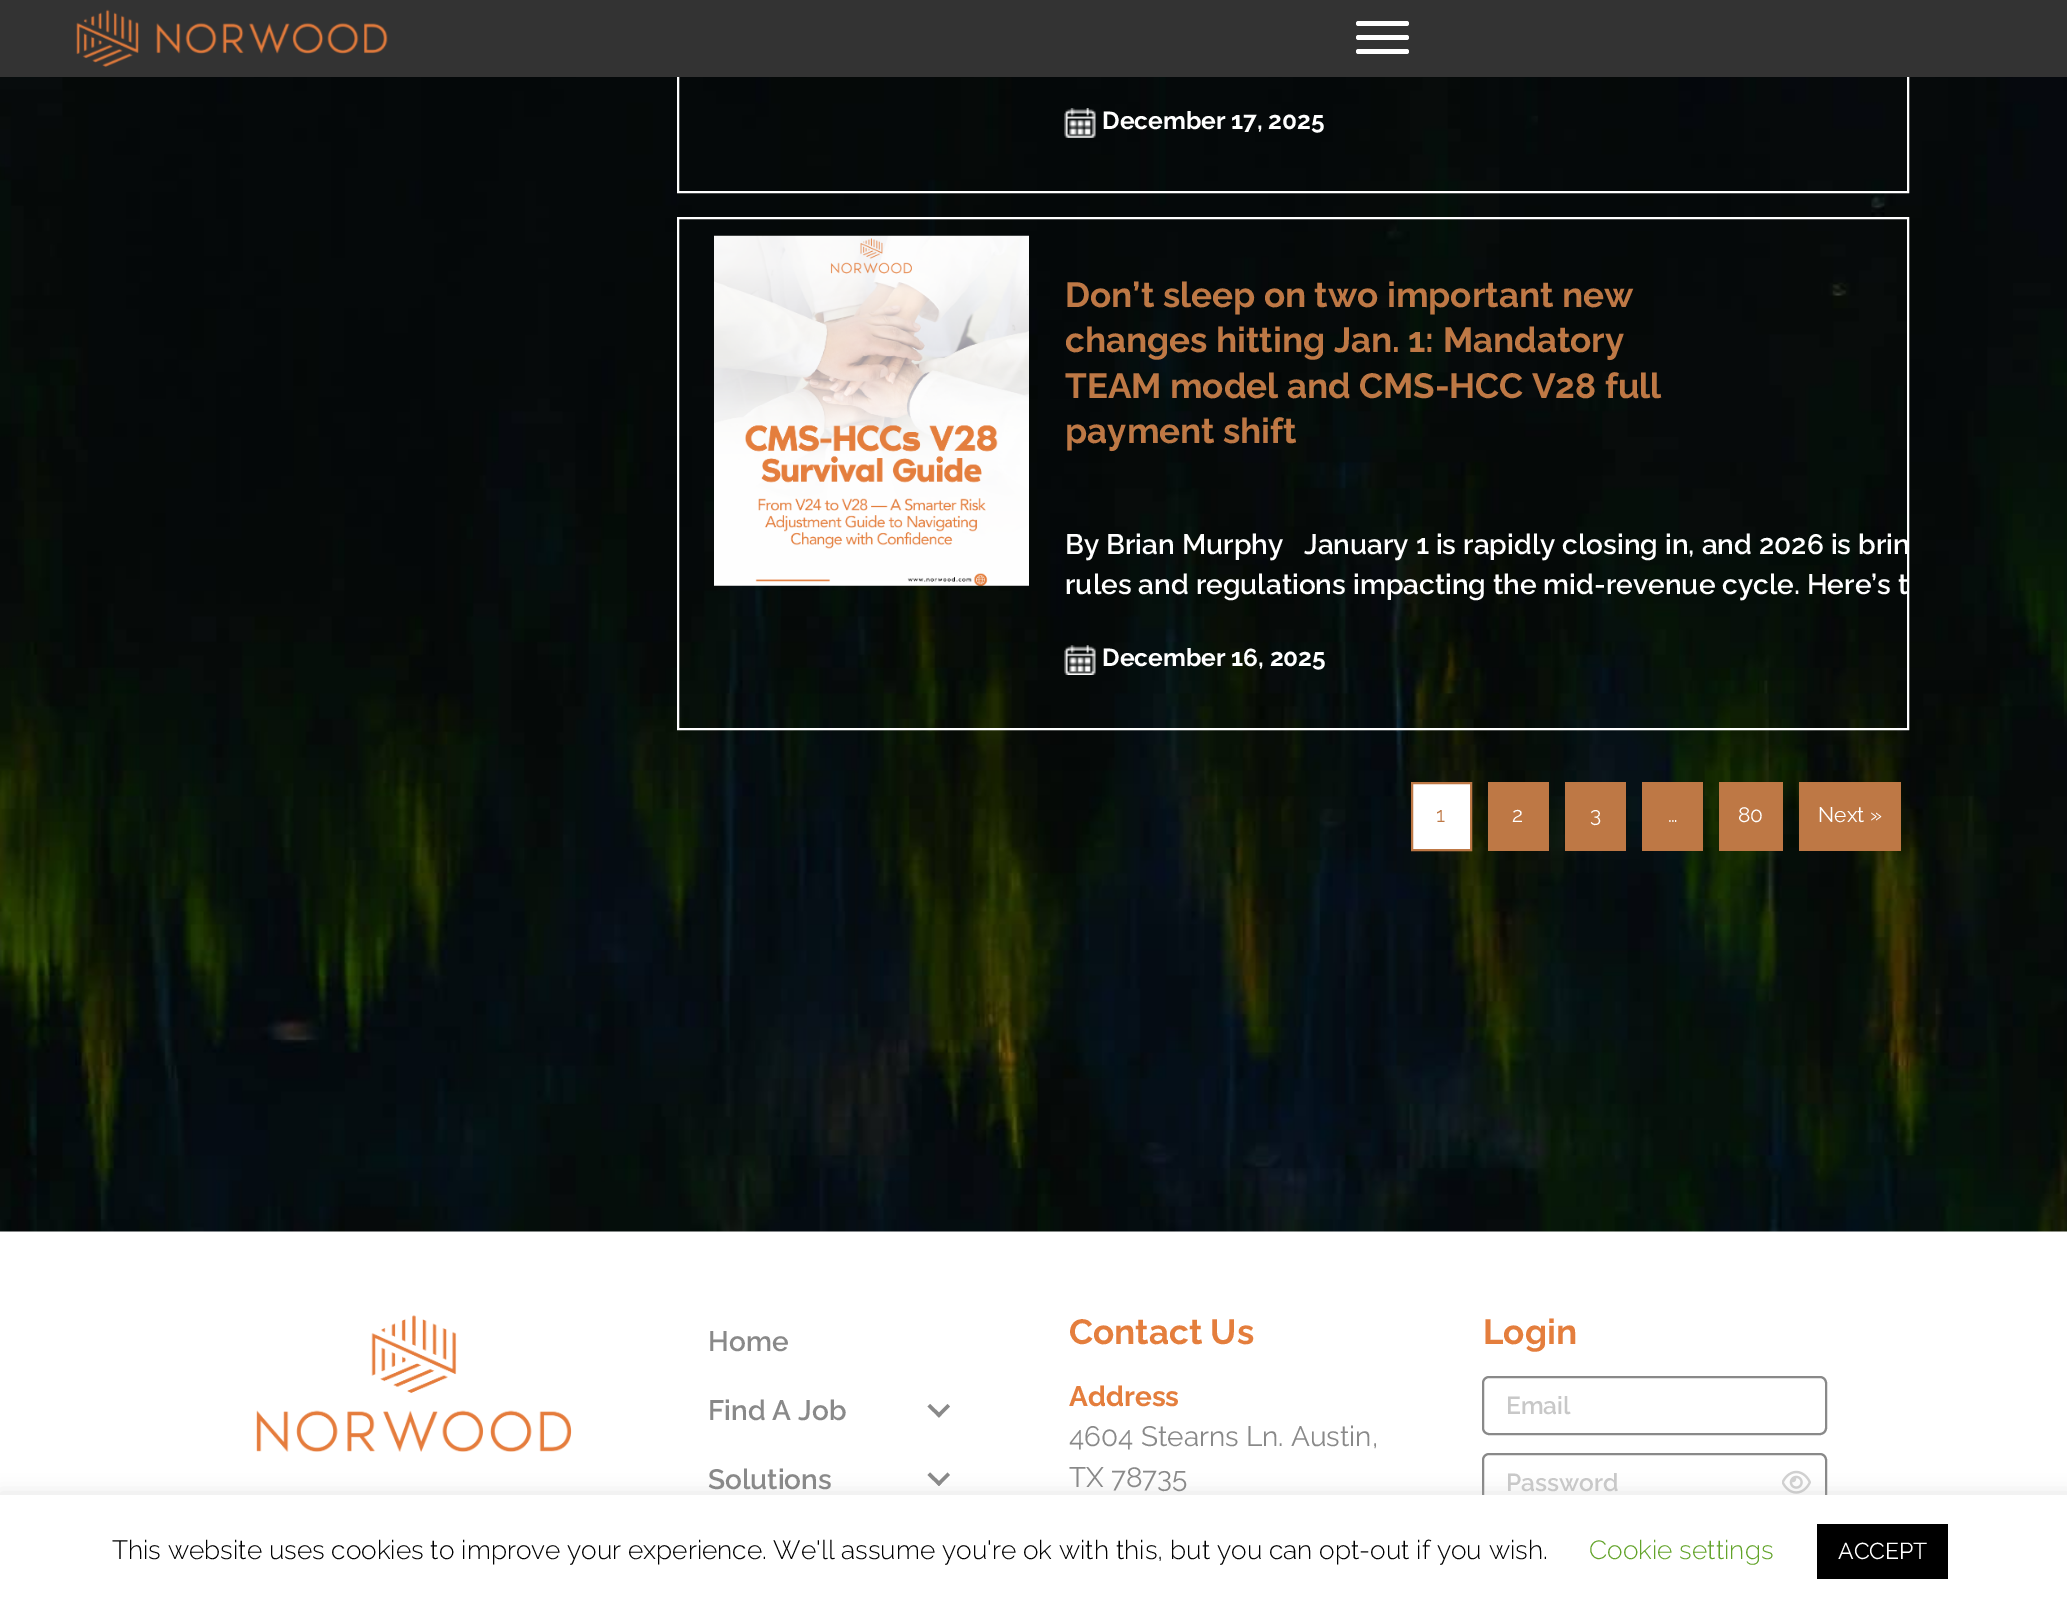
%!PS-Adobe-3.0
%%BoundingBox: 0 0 2067 1608
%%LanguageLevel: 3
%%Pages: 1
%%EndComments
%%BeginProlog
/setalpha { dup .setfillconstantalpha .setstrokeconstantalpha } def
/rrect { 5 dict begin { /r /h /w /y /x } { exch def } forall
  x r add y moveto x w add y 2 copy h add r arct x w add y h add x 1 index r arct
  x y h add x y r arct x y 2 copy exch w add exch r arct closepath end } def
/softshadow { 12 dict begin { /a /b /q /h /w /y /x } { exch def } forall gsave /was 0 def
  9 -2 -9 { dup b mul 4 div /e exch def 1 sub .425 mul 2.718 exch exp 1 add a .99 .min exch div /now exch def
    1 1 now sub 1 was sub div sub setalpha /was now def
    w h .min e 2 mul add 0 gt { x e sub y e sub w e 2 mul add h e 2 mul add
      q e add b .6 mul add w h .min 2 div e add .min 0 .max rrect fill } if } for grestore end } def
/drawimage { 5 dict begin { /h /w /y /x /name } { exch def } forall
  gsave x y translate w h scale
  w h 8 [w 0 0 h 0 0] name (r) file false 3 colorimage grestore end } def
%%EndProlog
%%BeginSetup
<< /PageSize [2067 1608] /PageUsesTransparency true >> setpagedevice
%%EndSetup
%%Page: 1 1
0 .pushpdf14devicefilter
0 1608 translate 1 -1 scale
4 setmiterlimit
1 setgray
0 0 2067 1608 rectfill
(images/2.raw) 0 77 2067 1155 drawimage
2 setlinewidth
678 -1 1230 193 rectstroke
0.2 setgray
0 0 2067 77 rectfill
(images/1.raw) 76 9 312 58 drawimage
1 setgray
1356 35 53 5 2.5 rrect fill
1356 21 53 5 2.5 rrect fill
1356 49 53 5 2.5 rrect fill
(images/3.raw) 1064 108 32 30 drawimage
678 218 1230 511 rectstroke
(images/4.raw) 714 235 315 351 drawimage
(images/5.raw) 1064 645 32 30 drawimage
newpath 1412 783 moveto 1471 783 lineto 1471 850 lineto 1412 850 lineto closepath gsave fill grestore
0.745 0.471 0.271 setrgbcolor
stroke
1488 782 61 69 rectfill
1565 782 61 69 rectfill
1642 782 61 69 rectfill
1719 782 64 69 rectfill
1799 782 102 69 rectfill
(images/6.raw) 256 1315 316 137 drawimage
0.537 setgray
newpath 947.5 1404 moveto 950 1406.5 lineto 939 1417.5 lineto 936.5 1415 lineto closepath fill
newpath 930 1404 moveto 941.5 1415 lineto 939 1417.5 lineto 927.5 1406.5 lineto closepath fill
newpath 947.5 1472.5 moveto 950 1475 lineto 939 1486 lineto 936.5 1483.5 lineto closepath fill
newpath 930 1472.5 moveto 941.5 1483.5 lineto 939 1486 lineto 927.5 1475 lineto closepath fill
1483 1377 343 57 6 rrect stroke
1483 1454 343 57 6 rrect stroke
(images/7.raw) 1782 1470 29 24 drawimage
0.675 0.671 0.671 setrgbcolor
0 1493 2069 114 0 9 0.3 softshadow
1 setgray
0 1495 2067 113 rectfill
0 setgray
1817 1524 131 55 rectfill
/Raleway-Bold [24.5 0 0 -24.5 0 0] selectfont
1 setgray
1102 129 moveto (December 17, 2025) show
/Raleway-Bold [35 0 0 -35 0 0] selectfont
0.745 0.471 0.271 setrgbcolor
1065 307 moveto (Don’t sleep on two important new) show
1065 352 moveto (changes hitting Jan. 1: Mandatory) show
1065 398 moveto (TEAM model and CMS-HCC V28 full) show
1065 443 moveto (payment shift) show
/Raleway-SemiBold [28 0 0 -28 0 0] selectfont
1 setgray
1065 554 moveto (By Brian Murphy   January 1 is rapidly closing in, and 2026 is brin) show
1065 594 moveto (rules and regulations impacting the mid-revenue cycle. Here’s t) show
/Raleway-Bold [24.5 0 0 -24.5 0 0] selectfont
1102 666 moveto (December 16, 2025) show
/Raleway-Regular [21 0 0 -21 0 0] selectfont
0.745 0.471 0.271 setrgbcolor
1436 822 moveto (1) show
1 setgray
1512 822 moveto (2) show
1590 822 moveto (3) show
1668 822 moveto (…) show
1738 822 moveto (80) show
1818 822 moveto (Next ») show
/Raleway-SemiBold [28 0 0 -28 0 0] selectfont
0.537 setgray
708 1351 moveto (Home) show
708 1420 moveto (Find A Job) show
708 1489 moveto (Solutions) show
/Raleway-Bold [35 0 0 -35 0 0] selectfont
0.894 0.494 0.239 setrgbcolor
1069 1344 moveto (Contact Us) show
/Raleway-Bold [28 0 0 -28 0 0] selectfont
1069 1406 moveto (Address) show
/Raleway-Regular [28 0 0 -28 0 0] selectfont
0.537 setgray
1069 1446 moveto (4604 Stearns Ln. Austin,) show
1069 1487 moveto (TX 78735) show
/Raleway-Bold [35 0 0 -35 0 0] selectfont
0.894 0.494 0.239 setrgbcolor
1483 1344 moveto (Login) show
/Raleway-SemiBold [24.5 0 0 -24.5 0 0] selectfont
0.784 setgray
1506 1414 moveto (Email) show
1506 1491 moveto (Password) show
/Raleway-Light [26.25 0 0 -26.25 0 0] selectfont
0 setgray
112 1559 moveto (This website uses cookies to improve your experience. We'll assume you're ok with this, but you can opt-out if you wish.) show
0.384 0.639 0.161 setrgbcolor
1589 1559 moveto (Cookie settings) show
/Raleway-Regular [23 0 0 -23 0 0] selectfont
1 setgray
1838 1559 moveto (ACCEPT) show
.poppdf14devicefilter showpage
%%EOF
